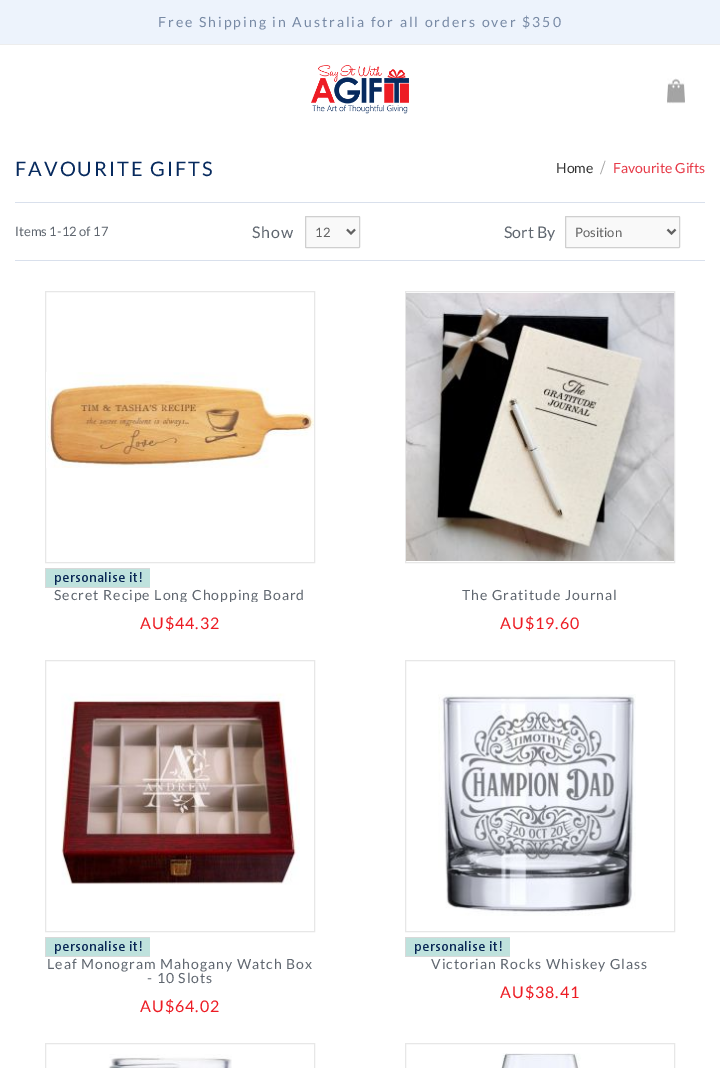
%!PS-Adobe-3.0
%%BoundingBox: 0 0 720 1068
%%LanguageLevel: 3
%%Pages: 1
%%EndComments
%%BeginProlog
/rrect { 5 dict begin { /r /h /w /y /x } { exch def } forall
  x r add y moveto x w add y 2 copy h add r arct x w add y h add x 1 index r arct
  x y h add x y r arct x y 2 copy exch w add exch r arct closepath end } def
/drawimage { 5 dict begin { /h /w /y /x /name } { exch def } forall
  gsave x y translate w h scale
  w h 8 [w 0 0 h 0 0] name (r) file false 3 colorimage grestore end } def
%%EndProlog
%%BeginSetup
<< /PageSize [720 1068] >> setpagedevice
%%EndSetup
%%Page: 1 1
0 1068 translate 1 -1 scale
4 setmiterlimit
1 setgray
0 0 720 1068 rectfill
0.929 0.953 0.988 setrgbcolor
0 0 720 44 rectfill
0.929 setgray
0 44 720 1 rectfill
(images/1.raw) 311 65 98 49 drawimage
(images/2.raw) 667 78 18 26 drawimage
0.851 0.878 0.925 setrgbcolor
15 202 690 1 rectfill
15 260 690 1 rectfill
0.976 setgray
305.5 216.5 54 31 0.5 rrect gsave fill grestore
0.812 setgray
stroke
0.38 setgray
2 setlinewidth
newpath 347 229.5 moveto 351 233.5 lineto 355 229.5 lineto stroke
0.976 setgray
565.5 216.5 114 31 0.5 rrect gsave fill grestore
0.812 setgray
1 setlinewidth
stroke
0.38 setgray
2 setlinewidth
newpath 667.5 229.5 moveto 671.5 233.5 lineto 675.5 229.5 lineto stroke
0.906 setgray
1 setlinewidth
45.5 291.5 269 271 rectstroke
(images/3.raw) 46 372 268 96 drawimage
(images/4.raw) 45 568 105 20 drawimage
405.5 291.5 269 271 rectstroke
(images/5.raw) 406 293 268 268 drawimage
45.5 660.5 269 271 rectstroke
(images/6.raw) 61 693 239 192 drawimage
(images/4.raw) 45 937 105 20 drawimage
405.5 660.5 269 271 rectstroke
(images/7.raw) 438 694 198 222 drawimage
(images/4.raw) 405 937 105 20 drawimage
45.5 1043.5 269 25 rectstroke
(images/8.raw) 108 1054 124 14 drawimage
405.5 1043.5 269 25 rectstroke
(images/9.raw) 501 1053 80 15 drawimage
/Lato-Regular [14 0 0 -14 0 0] selectfont
0.471 0.541 0.647 setrgbcolor
158 27 moveto 2 0 (Free Shipping in Australia for all orders over $350) ashow
/Lato-Regular [20 0 0 -20 0 0] selectfont
0.027 0.165 0.369 setrgbcolor
15 176 moveto 2 0 (FAVOURITE GIFTS) ashow
/Lato-Regular [14 0 0 -14 0 0] selectfont
0.2 setgray
556 173 moveto (Home) show
/LiberationSerif-Regular [20 0 0 -20 0 0] selectfont
0.639 setgray
600 174 moveto (/) show
/Lato-Regular [14 0 0 -14 0 0] selectfont
0.906 0.231 0.286 setrgbcolor
613 173 moveto (Favourite Gifts) show
/Lato-Regular [13 0 0 -13 0 0] selectfont
0.373 0.4 0.435 setrgbcolor
15 236 moveto (Items 1-12 of 17) show
/Lato-Regular [16 0 0 -16 0 0] selectfont
252 238 moveto 1 0 (Show) ashow
/Lato-Regular [13 0 0 -13 0 0] selectfont
0.38 setgray
315 237 moveto (12) show
/Lato-Regular [16 0 0 -16 0 0] selectfont
0.373 0.4 0.435 setrgbcolor
504 238 moveto (Sort By) show
/Lato-Regular [13 0 0 -13 0 0] selectfont
0.38 setgray
575 237 moveto (Position) show
gsave
45 588 270 14 rectclip
/Lato-Regular [14 0 0 -14 0 0] selectfont
0.373 0.4 0.435 setrgbcolor
54 600 moveto 1 0 (Secret Recipe Long Chopping Board) ashow
grestore
/Lato-Regular [16 0 0 -16 0 0] selectfont
0.929 0.11 0.141 setrgbcolor
140 629 moveto 1 0 (AU$44.32) ashow
/Lato-Regular [14 0 0 -14 0 0] selectfont
0.373 0.4 0.435 setrgbcolor
462 600 moveto 1 0 (The Gratitude Journal) ashow
/Lato-Regular [16 0 0 -16 0 0] selectfont
0.929 0.11 0.141 setrgbcolor
500 629 moveto 1 0 (AU$19.60) ashow
/Lato-Regular [14 0 0 -14 0 0] selectfont
0.373 0.4 0.435 setrgbcolor
47 969 moveto 1 0 (Leaf Monogram Mahogany Watch Box) ashow
147 983 moveto 1 0 (- 10 Slots) ashow
/Lato-Regular [16 0 0 -16 0 0] selectfont
0.929 0.11 0.141 setrgbcolor
140 1012 moveto 1 0 (AU$64.02) ashow
/Lato-Regular [14 0 0 -14 0 0] selectfont
0.373 0.4 0.435 setrgbcolor
431 969 moveto 1 0 (Victorian Rocks Whiskey Glass) ashow
/Lato-Regular [16 0 0 -16 0 0] selectfont
0.929 0.11 0.141 setrgbcolor
500 998 moveto 1 0 (AU$38.41) ashow
showpage
%%EOF
